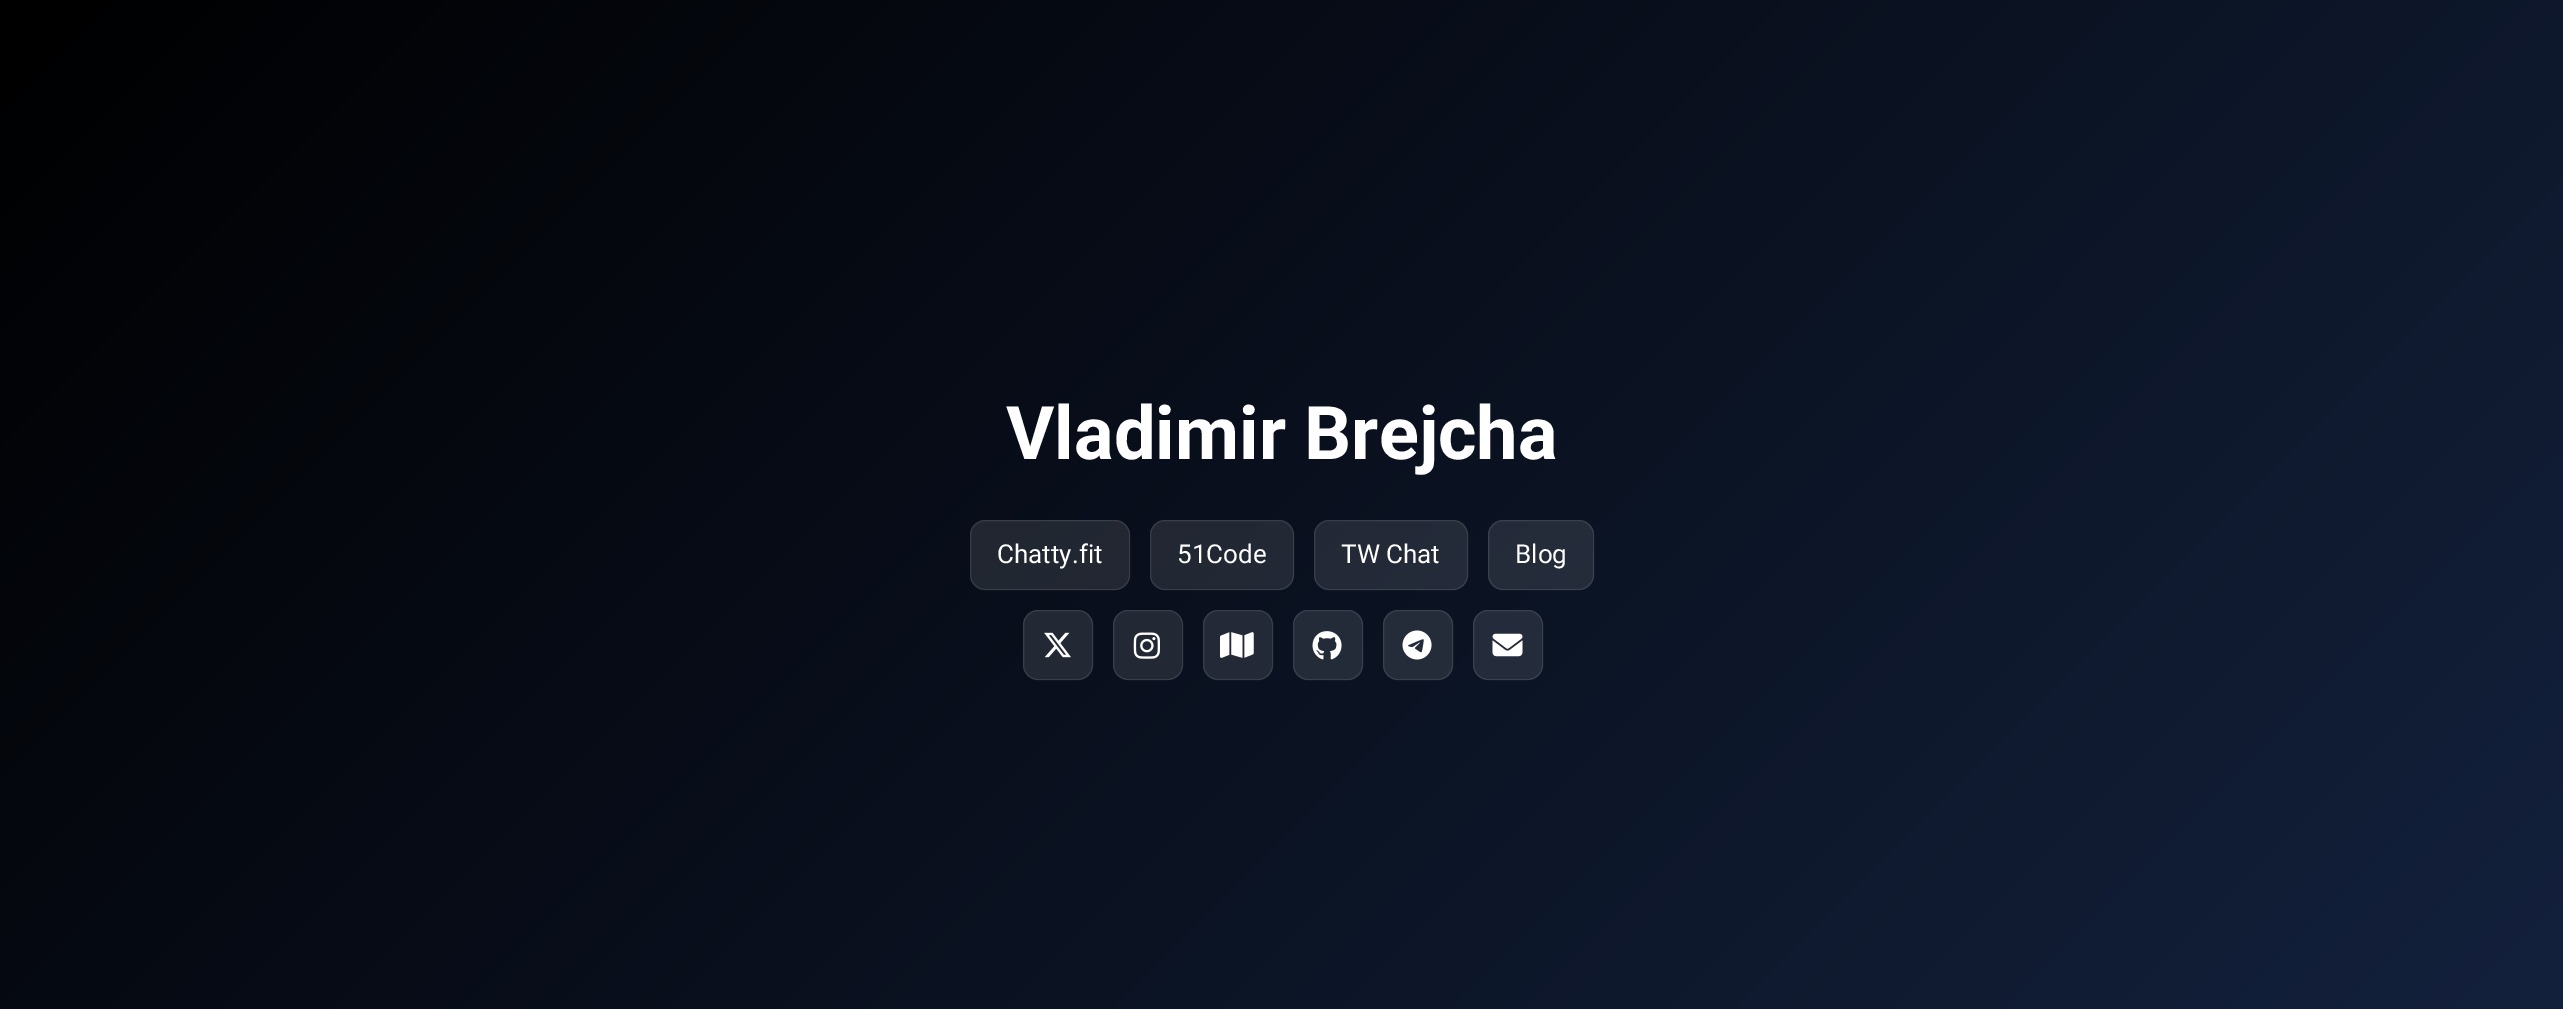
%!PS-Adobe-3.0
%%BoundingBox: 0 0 2563 1009
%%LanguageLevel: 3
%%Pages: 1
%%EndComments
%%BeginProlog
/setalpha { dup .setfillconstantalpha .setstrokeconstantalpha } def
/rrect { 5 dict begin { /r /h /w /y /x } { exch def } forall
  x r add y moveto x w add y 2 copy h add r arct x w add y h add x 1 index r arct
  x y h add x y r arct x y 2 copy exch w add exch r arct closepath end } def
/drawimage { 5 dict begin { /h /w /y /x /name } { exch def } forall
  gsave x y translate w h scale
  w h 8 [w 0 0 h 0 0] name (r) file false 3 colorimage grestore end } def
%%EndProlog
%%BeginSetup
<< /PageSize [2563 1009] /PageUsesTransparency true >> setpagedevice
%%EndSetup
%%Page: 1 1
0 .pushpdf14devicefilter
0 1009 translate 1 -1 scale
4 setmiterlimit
1 setgray
0 0 2563 1009 rectfill
gsave newpath 0 0 moveto 2563 0 lineto 2563 1009 lineto 0 1009 lineto closepath clip newpath
<< /ShadingType 2 /ColorSpace /DeviceRGB /Coords [388 -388 2175 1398] /Extend [true true] /Function << /FunctionType 2 /Domain [0 1] /C0 [0 0 0] /C1 [0.078 0.129 0.239] /N 1 >> >> shfill grestore
0.1 setalpha
970 520 160 70 15 rrect fill
970.5 520.5 159 69 14.5 rrect stroke
1150 520 144 70 15 rrect fill
1150.5 520.5 143 69 14.5 rrect stroke
1314 520 154 70 15 rrect fill
1314.5 520.5 153 69 14.5 rrect stroke
1488 520 106 70 15 rrect fill
1488.5 520.5 105 69 14.5 rrect stroke
1 setalpha
0.133 0.157 0.204 setrgbcolor
1023 610 70 70 15 rrect fill
0.1 setalpha
1 setgray
1023.5 610.5 69 69 14.5 rrect stroke
1 setalpha
(images/1.raw) 1044 632 27 26 drawimage
0.137 0.157 0.208 setrgbcolor
1113 610 70 70 15 rrect fill
0.1 setalpha
1 setgray
1113.5 610.5 69 69 14.5 rrect stroke
1 setalpha
(images/2.raw) 1133 632 27 27 drawimage
0.137 0.161 0.212 setrgbcolor
1203 610 70 70 15 rrect fill
0.1 setalpha
1 setgray
1203.5 610.5 69 69 14.5 rrect stroke
1 setalpha
(images/3.raw) 1220 632 34 26 drawimage
0.137 0.165 0.22 setrgbcolor
1293 610 70 70 15 rrect fill
0.1 setalpha
1 setgray
1293.5 610.5 69 69 14.5 rrect stroke
1 setalpha
(images/4.raw) 1312 631 30 29 drawimage
0.141 0.169 0.224 setrgbcolor
1383 610 70 70 15 rrect fill
0.1 setalpha
1 setgray
1383.5 610.5 69 69 14.5 rrect stroke
1 setalpha
(images/5.raw) 1402 630 30 30 drawimage
0.141 0.169 0.231 setrgbcolor
1473 610 70 70 15 rrect fill
0.1 setalpha
1 setgray
1473.5 610.5 69 69 14.5 rrect stroke
1 setalpha
(images/6.raw) 1492 633 31 24 drawimage
/Roboto-Bold [74 0 0 -74 0 0] selectfont
1006 459 moveto (Vladimir Brejcha) show
/Roboto-Regular [26 0 0 -26 0 0] selectfont
997 563 moveto (Chatty.fit) show
1177 563 moveto (51Code) show
1341 563 moveto (TW Chat) show
1515 563 moveto (Blog) show
.poppdf14devicefilter showpage
%%EOF
